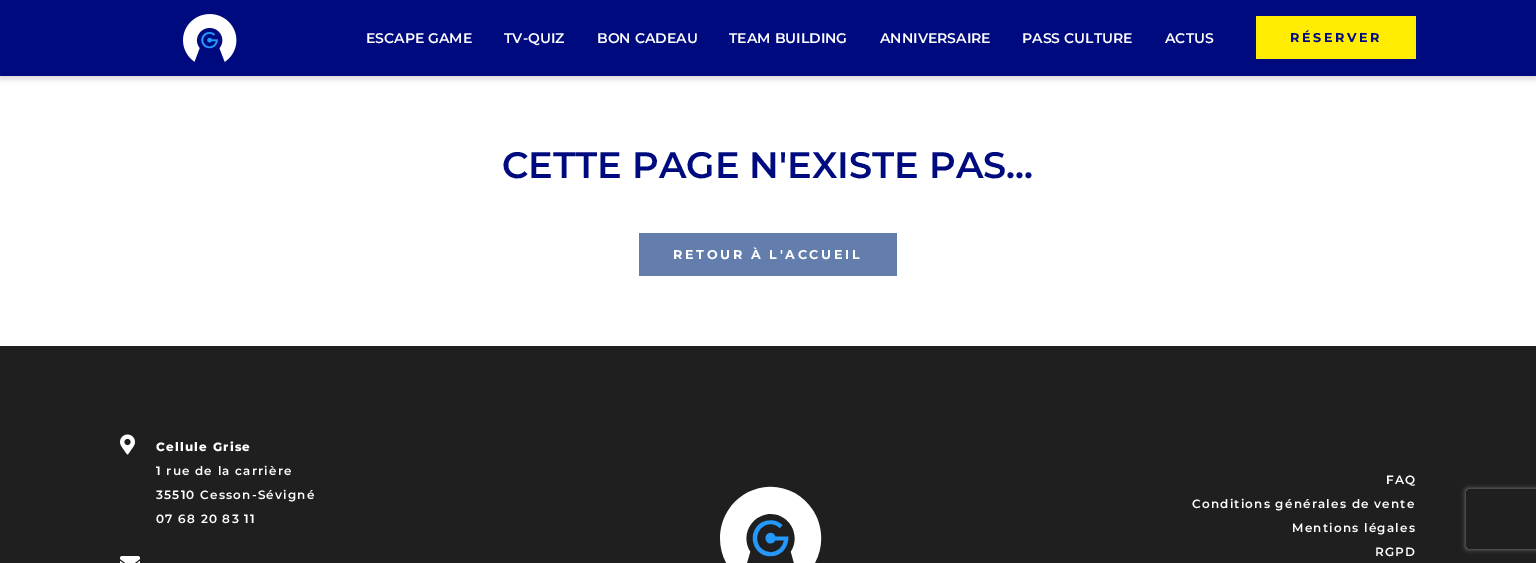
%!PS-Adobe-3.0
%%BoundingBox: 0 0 1536 563
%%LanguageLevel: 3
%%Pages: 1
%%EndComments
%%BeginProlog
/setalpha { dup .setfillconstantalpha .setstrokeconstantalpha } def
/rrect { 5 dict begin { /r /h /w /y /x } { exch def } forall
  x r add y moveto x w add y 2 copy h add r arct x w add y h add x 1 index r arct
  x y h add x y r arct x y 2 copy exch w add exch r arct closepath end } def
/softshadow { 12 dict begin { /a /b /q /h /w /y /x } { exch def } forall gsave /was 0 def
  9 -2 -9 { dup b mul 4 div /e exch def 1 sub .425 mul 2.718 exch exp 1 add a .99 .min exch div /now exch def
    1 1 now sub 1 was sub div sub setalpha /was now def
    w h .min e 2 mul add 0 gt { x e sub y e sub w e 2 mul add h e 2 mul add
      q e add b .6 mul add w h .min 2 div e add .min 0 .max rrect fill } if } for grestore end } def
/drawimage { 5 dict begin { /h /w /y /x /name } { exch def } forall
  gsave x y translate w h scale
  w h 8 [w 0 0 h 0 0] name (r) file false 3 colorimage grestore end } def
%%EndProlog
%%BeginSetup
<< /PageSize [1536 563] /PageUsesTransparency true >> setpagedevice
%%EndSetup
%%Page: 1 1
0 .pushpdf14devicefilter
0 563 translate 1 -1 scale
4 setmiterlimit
1 setgray
0 0 1536 563 rectfill
0 setgray
0 3 1536 76 0 3 0.16 softshadow
0 0.039 0.498 setrgbcolor
0 0 1536 76 rectfill
(images/1.raw) 183 14 54 48 drawimage
1 0.925 0 setrgbcolor
1256 16 160 43 rectfill
0.388 0.49 0.675 setrgbcolor
639 233 258 43 rectfill
0.122 setgray
0 346 1536 217 rectfill
(images/2.raw) 120 434 15 21 drawimage
(images/3.raw) 120 556 20 7 drawimage
(images/4.raw) 720 486 102 77 drawimage
gsave
newpath 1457 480 moveto 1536 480 lineto 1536 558 lineto 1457 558 lineto closepath 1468 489 moveto 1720 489 lineto 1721 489 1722 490 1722 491 curveto 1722 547 lineto 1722 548 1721 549 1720 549 curveto 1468 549 lineto 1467 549 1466 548 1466 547 curveto 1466 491 lineto 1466 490 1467 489 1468 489 curveto closepath eoclip newpath
0.502 setgray
1466 489 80 60 2 2.5 1 softshadow
grestore
/Montserrat-SemiBold [14 0 0 -14 0 0] selectfont
1 setgray
366 43 moveto (ESCAPE GAME) show
504 43 moveto (TV-QUIZ) show
597 43 moveto (BON CADEAU) show
729 43 moveto (TEAM BUILDING) show
880 43 moveto (ANNIVERSAIRE) show
1022 43 moveto (PASS CULTURE) show
1165 43 moveto (ACTUS) show
/Montserrat-Bold [12.75 0 0 -12.75 0 0] selectfont
0 0.039 0.498 setrgbcolor
1290 42 moveto 2.6 0 (RÉSERVER) ashow
/Montserrat-SemiBold [36.75 0 0 -36.75 0 0] selectfont
502 178 moveto (CETTE PAGE N'EXISTE PAS...) show
/Montserrat-Bold [12.75 0 0 -12.75 0 0] selectfont
1 setgray
673 259 moveto 2.6 0 (RETOUR À L'ACCUEIL) ashow
/Montserrat-ExtraBold [12 0 0 -12 0 0] selectfont
156 451 moveto 1.2 0 (Cellule Grise) ashow
/Montserrat-SemiBold [12 0 0 -12 0 0] selectfont
156 475 moveto 1.2 0 (1 rue de la carrière) ashow
156 499 moveto 1.2 0 (35510 Cesson-Sévigné) ashow
156 523 moveto 1.2 0 (07 68 20 83 11) ashow
1386 484 moveto 1.2 0 (FAQ) ashow
1192 508 moveto 1.2 0 (Conditions générales de vente) ashow
1292 532 moveto 1.2 0 (Mentions légales) ashow
1375 556 moveto 1.2 0 (RGPD) ashow
.poppdf14devicefilter showpage
%%EOF
